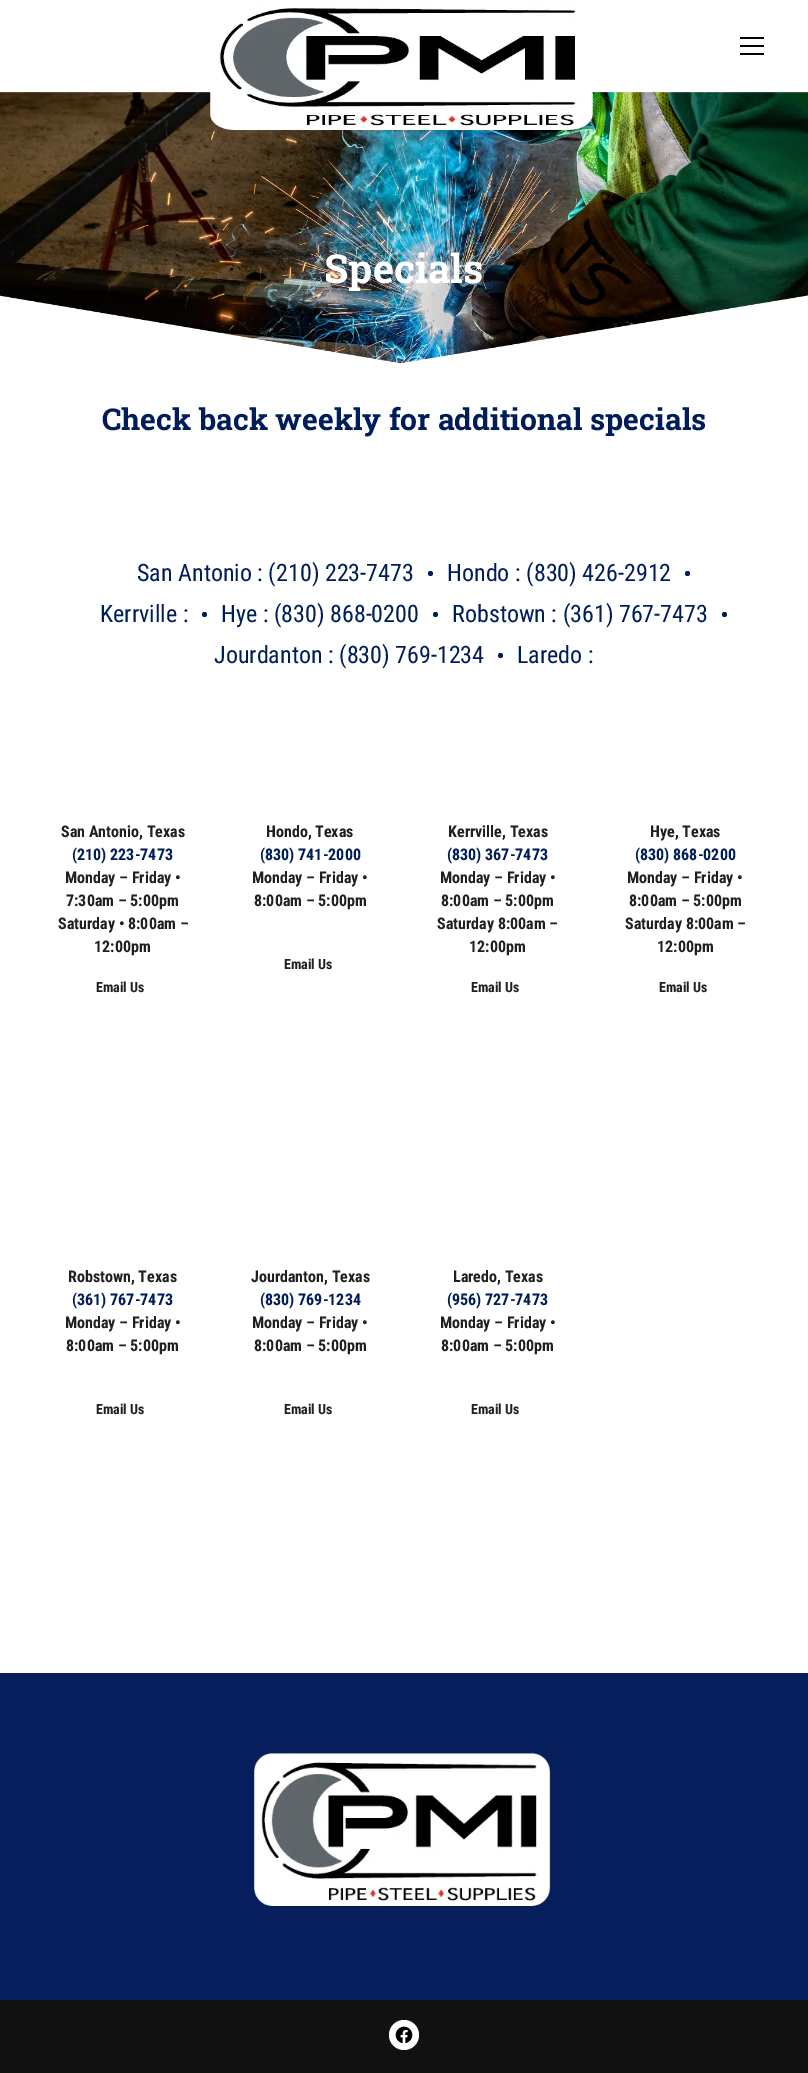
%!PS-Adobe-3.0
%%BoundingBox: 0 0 808 2073
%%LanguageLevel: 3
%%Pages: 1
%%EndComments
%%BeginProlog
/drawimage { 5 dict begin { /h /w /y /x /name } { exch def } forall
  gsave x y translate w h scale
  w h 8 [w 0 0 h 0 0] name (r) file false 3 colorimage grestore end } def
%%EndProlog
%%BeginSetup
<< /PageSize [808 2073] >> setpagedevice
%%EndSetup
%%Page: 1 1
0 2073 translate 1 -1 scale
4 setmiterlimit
1 setgray
0 0 808 2073 rectfill
(images/2.raw) 0 92 808 272 drawimage
(images/1.raw) 210 1 383 129 drawimage
0 setgray
740 37 24 2 rectfill
740 45 24 2 rectfill
740 53 24 2 rectfill
0 0.114 0.353 setrgbcolor
newpath 430.5 573.5 2.5 0 360 arc closepath fill
newpath 687.5 573.5 2.5 0 360 arc closepath fill
newpath 204.5 614.5 2.5 0 360 arc closepath fill
newpath 435.5 614.5 2.5 0 360 arc closepath fill
newpath 724.5 614.5 2.5 0 360 arc closepath fill
newpath 500.5 655.5 2.5 0 360 arc closepath fill
0.024 0.122 0.361 setrgbcolor
0 1673 808 327 rectfill
(images/3.raw) 254 1753 297 153 drawimage
0.067 setgray
0 2000 808 73 rectfill
1 setgray
newpath 404 2035 15 0 360 arc closepath fill
(images/4.raw) 395 2026 18 18 drawimage
/RobotoSlab-Bold [40 0 0 -40 0 0] selectfont
324 283 moveto (Specials) show
/RobotoSlab-Bold [30 0 0 -30 0 0] selectfont
0 0.114 0.353 setrgbcolor
102 430 moveto (Check back weekly for additional specials) show
/RobotoCondensed-Regular [24 0 0 -24 0 0] selectfont
137 581 moveto (San Antonio : \(210\) 223-7473) show
447 581 moveto (Hondo : \(830\) 426-2912) show
100 622 moveto (Kerrville :) show
221 622 moveto (Hye : \(830\) 868-0200) show
452 622 moveto (Robstown : \(361\) 767-7473) show
214 663 moveto (Jourdanton : \(830\) 769-1234) show
517 663 moveto (Laredo :) show
/RobotoCondensed-Bold [16 0 0 -16 0 0] selectfont
0.137 0.122 0.125 setrgbcolor
61 837 moveto (San Antonio, Texas) show
0 0.114 0.353 setrgbcolor
72 860 moveto (\(210\) 223-7473) show
0.137 0.122 0.125 setrgbcolor
65 883 moveto (Monday – Friday •) show
66 906 moveto (7:30am – 5:00pm) show
58 929 moveto (Saturday • 8:00am –) show
94 952 moveto (12:00pm) show
/RobotoCondensed-Bold [14 0 0 -14 0 0] selectfont
96 992 moveto (Email Us) show
/RobotoCondensed-Bold [16 0 0 -16 0 0] selectfont
266 837 moveto (Hondo, Texas) show
0 0.114 0.353 setrgbcolor
260 860 moveto (\(830\) 741-2000) show
0.137 0.122 0.125 setrgbcolor
252 883 moveto (Monday – Friday •) show
254 906 moveto (8:00am – 5:00pm) show
/RobotoCondensed-Bold [14 0 0 -14 0 0] selectfont
284 969 moveto (Email Us) show
/RobotoCondensed-Bold [16 0 0 -16 0 0] selectfont
448 837 moveto (Kerrville, Texas) show
0 0.114 0.353 setrgbcolor
447 860 moveto (\(830\) 367-7473) show
0.137 0.122 0.125 setrgbcolor
440 883 moveto (Monday – Friday •) show
441 906 moveto (8:00am – 5:00pm) show
437 929 moveto (Saturday 8:00am –) show
469 952 moveto (12:00pm) show
/RobotoCondensed-Bold [14 0 0 -14 0 0] selectfont
471 992 moveto (Email Us) show
/RobotoCondensed-Bold [16 0 0 -16 0 0] selectfont
650 837 moveto (Hye, Texas) show
0 0.114 0.353 setrgbcolor
635 860 moveto (\(830\) 868-0200) show
0.137 0.122 0.125 setrgbcolor
627 883 moveto (Monday – Friday •) show
629 906 moveto (8:00am – 5:00pm) show
625 929 moveto (Saturday 8:00am –) show
657 952 moveto (12:00pm) show
/RobotoCondensed-Bold [14 0 0 -14 0 0] selectfont
659 992 moveto (Email Us) show
/RobotoCondensed-Bold [16 0 0 -16 0 0] selectfont
68 1282 moveto (Robstown, Texas) show
0 0.114 0.353 setrgbcolor
72 1305 moveto (\(361\) 767-7473) show
0.137 0.122 0.125 setrgbcolor
65 1328 moveto (Monday – Friday •) show
66 1351 moveto (8:00am – 5:00pm) show
/RobotoCondensed-Bold [14 0 0 -14 0 0] selectfont
96 1414 moveto (Email Us) show
/RobotoCondensed-Bold [16 0 0 -16 0 0] selectfont
251 1282 moveto (Jourdanton, Texas) show
0 0.114 0.353 setrgbcolor
260 1305 moveto (\(830\) 769-1234) show
0.137 0.122 0.125 setrgbcolor
252 1328 moveto (Monday – Friday •) show
254 1351 moveto (8:00am – 5:00pm) show
/RobotoCondensed-Bold [14 0 0 -14 0 0] selectfont
284 1414 moveto (Email Us) show
/RobotoCondensed-Bold [16 0 0 -16 0 0] selectfont
453 1282 moveto (Laredo, Texas) show
0 0.114 0.353 setrgbcolor
447 1305 moveto (\(956\) 727-7473) show
0.137 0.122 0.125 setrgbcolor
440 1328 moveto (Monday – Friday •) show
441 1351 moveto (8:00am – 5:00pm) show
/RobotoCondensed-Bold [14 0 0 -14 0 0] selectfont
471 1414 moveto (Email Us) show
showpage
%%EOF
